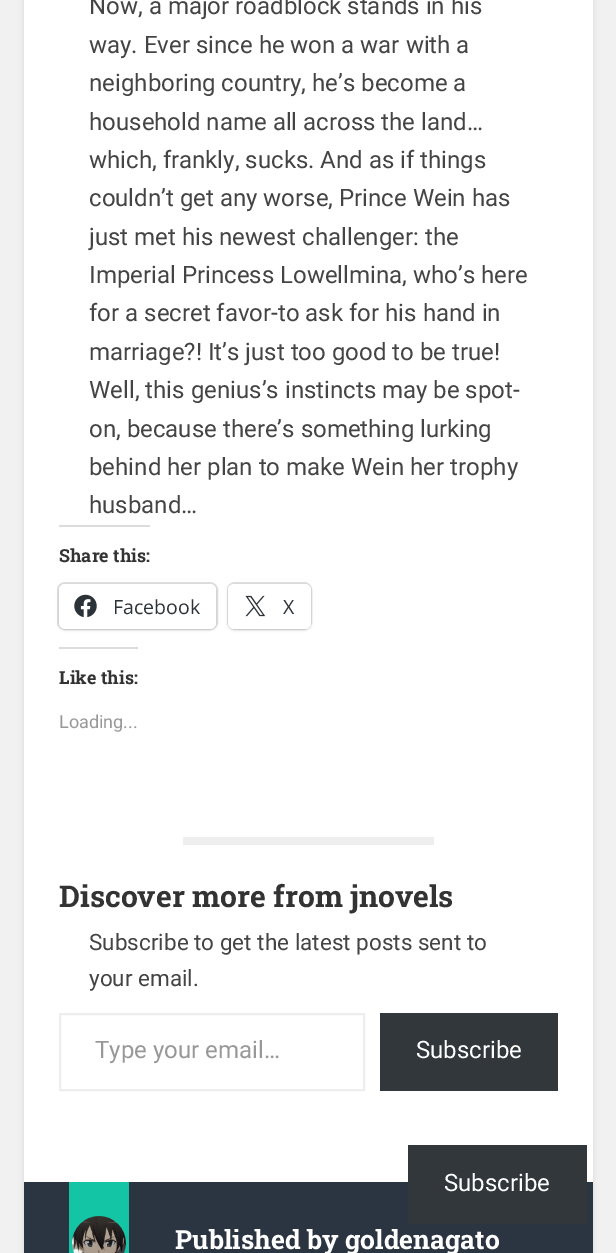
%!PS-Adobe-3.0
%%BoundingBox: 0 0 616 1253
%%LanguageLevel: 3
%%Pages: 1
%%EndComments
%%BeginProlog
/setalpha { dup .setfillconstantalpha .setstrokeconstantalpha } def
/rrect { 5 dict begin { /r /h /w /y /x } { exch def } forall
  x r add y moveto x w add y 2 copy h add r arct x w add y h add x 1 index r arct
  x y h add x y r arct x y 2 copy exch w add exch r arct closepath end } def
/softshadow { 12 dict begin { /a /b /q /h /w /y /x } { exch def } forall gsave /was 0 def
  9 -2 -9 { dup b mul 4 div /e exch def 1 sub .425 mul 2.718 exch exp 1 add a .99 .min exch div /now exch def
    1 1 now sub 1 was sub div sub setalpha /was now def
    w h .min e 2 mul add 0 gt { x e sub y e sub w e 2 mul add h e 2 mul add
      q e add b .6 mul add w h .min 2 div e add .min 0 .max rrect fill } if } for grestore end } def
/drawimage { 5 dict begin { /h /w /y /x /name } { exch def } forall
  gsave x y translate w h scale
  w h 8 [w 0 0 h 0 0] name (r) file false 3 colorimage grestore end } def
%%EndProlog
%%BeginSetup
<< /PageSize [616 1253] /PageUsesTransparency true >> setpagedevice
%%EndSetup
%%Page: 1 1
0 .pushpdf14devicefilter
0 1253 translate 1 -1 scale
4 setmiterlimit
0.945 setgray
0 0 616 1253 rectfill
0 setgray
24 -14 569 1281 5 3 0.1 softshadow
1 setgray
24 0 569 1182 rectfill
0.863 0.863 0.871 setrgbcolor
59 525 91 2 rectfill
0.878 setgray
2 setlinewidth
58 583 159 46 7 rrect stroke
0 setgray
59 585 157 45 6 1.5 0.12 softshadow
1 setgray
59 584 157 45 6 rrect fill
(images/1.raw) 74 594 23 24 drawimage
0.878 setgray
228 583 83 46 7 rrect stroke
0 setgray
228 585 83 45 6 1.5 0.12 softshadow
1 setgray
228 584 83 45 6 rrect fill
(images/2.raw) 245 595 21 22 drawimage
0.863 0.863 0.871 setrgbcolor
59 647 79 2 rectfill
0.933 setgray
183 837 251 8 rectfill
60 1014 304 76 rectstroke
0.196 0.216 0.235 setrgbcolor
380 1013 178 78 rectfill
0.169 0.208 0.259 setrgbcolor
24 1182 569 71 rectfill
0.075 0.769 0.647 setrgbcolor
69 1182 60 71 rectfill
(images/3.raw) 72 1216 54 37 drawimage
0.196 0.216 0.235 setrgbcolor
408 1145 179 79 rectfill
/Roboto-Regular [24 0 0 -24 0 0] selectfont
0.267 setgray
89 14 moveto (Now, a major roadblock stands in his) show
89 53 moveto (way. Ever since he won a war with a) show
89 91 moveto (neighboring country, he’s become a) show
89 130 moveto (household name all across the land…) show
89 168 moveto (which, frankly, sucks. And as if things) show
89 206 moveto (couldn’t get any worse, Prince Wein has) show
89 245 moveto (just met his newest challenger: the) show
89 283 moveto (Imperial Princess Lowellmina, who’s here) show
89 321 moveto (for a secret favor-to ask for his hand in) show
89 360 moveto (marriage?! It’s just too good to be true!) show
89 398 moveto (Well, this genius’s instincts may be spot-) show
89 437 moveto (on, because there’s something lurking) show
89 475 moveto (behind her plan to make Wein her trophy) show
89 513 moveto (husband…) show
/RobotoSlab-Bold [18 0 0 -18 0 0] selectfont
0.2 setgray
59 562 moveto (Share this:) show
/OpenSans-Regular [19.5 0 0 -19.5 0 0] selectfont
0.173 0.2 0.22 setrgbcolor
113 614 moveto (Facebook) show
283 614 moveto (X) show
/RobotoSlab-Bold [18 0 0 -18 0 0] selectfont
0.2 setgray
59 684 moveto (Like this:) show
/Roboto-Regular [18 0 0 -18 0 0] selectfont
0.596 setgray
59 728 moveto (Loading...) show
/RobotoSlab-Bold [30 0 0 -30 0 0] selectfont
0.2 setgray
59 907 moveto (Discover more from jnovels) show
/Roboto-Regular [22.5 0 0 -22.5 0 0] selectfont
0.267 setgray
89 950 moveto (Subscribe to get the latest posts sent to) show
89 986 moveto (your email.) show
/Roboto-Regular [24 0 0 -24 0 0] selectfont
0.596 setgray
95 1058 moveto (Type your email…) show
1 setgray
416 1058 moveto (Subscribe) show
/RobotoSlab-Bold [26.4 0 0 -26.4 0 0] selectfont
175 1249 moveto (Published by goldenagato) show
/Roboto-Regular [24 0 0 -24 0 0] selectfont
444 1191 moveto (Subscribe) show
.poppdf14devicefilter showpage
%%EOF
